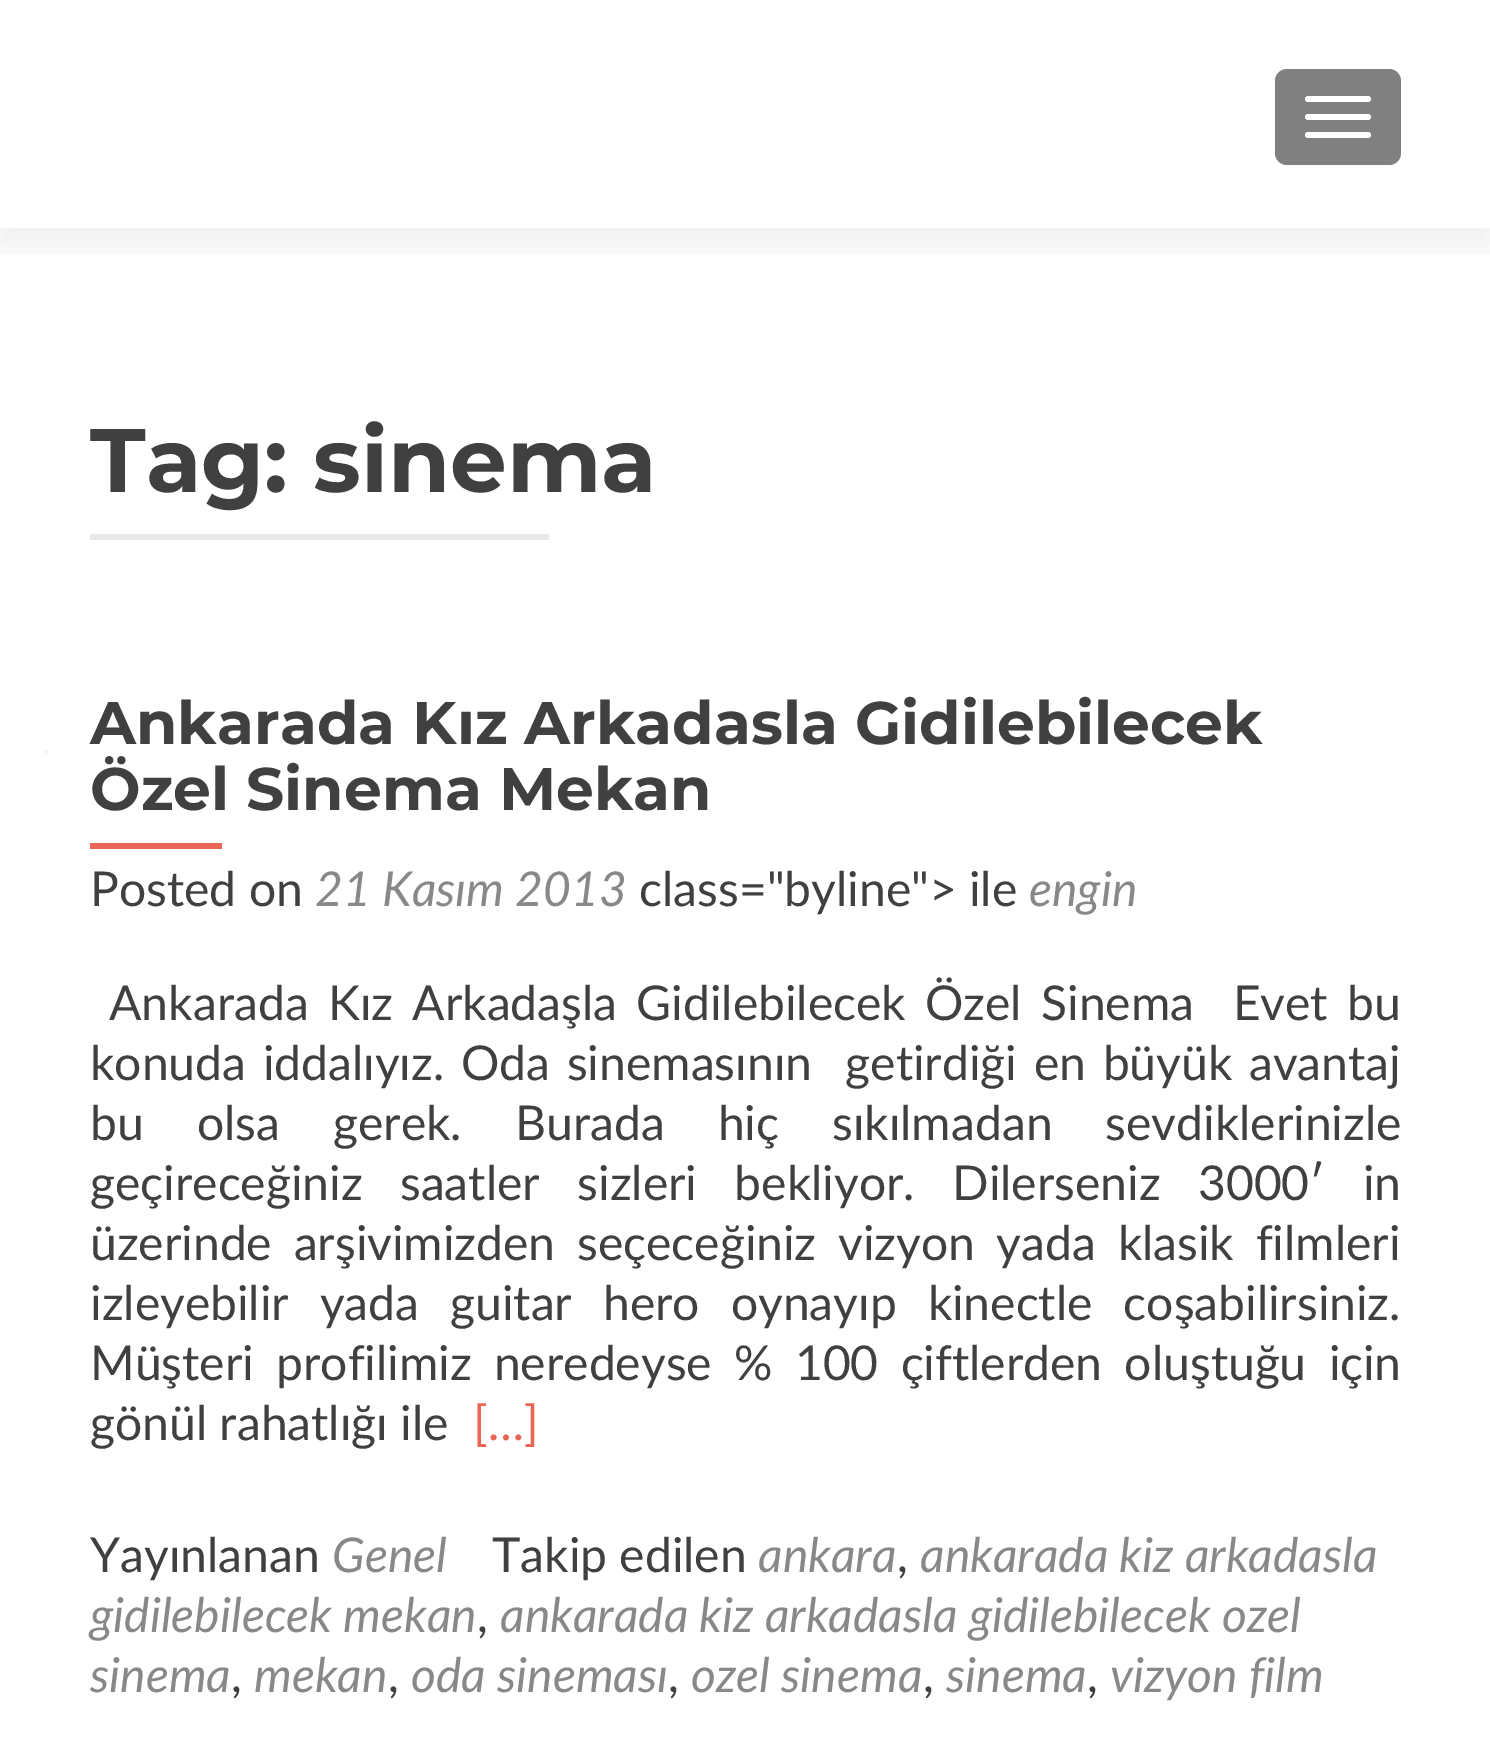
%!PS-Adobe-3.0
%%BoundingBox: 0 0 1490 1737
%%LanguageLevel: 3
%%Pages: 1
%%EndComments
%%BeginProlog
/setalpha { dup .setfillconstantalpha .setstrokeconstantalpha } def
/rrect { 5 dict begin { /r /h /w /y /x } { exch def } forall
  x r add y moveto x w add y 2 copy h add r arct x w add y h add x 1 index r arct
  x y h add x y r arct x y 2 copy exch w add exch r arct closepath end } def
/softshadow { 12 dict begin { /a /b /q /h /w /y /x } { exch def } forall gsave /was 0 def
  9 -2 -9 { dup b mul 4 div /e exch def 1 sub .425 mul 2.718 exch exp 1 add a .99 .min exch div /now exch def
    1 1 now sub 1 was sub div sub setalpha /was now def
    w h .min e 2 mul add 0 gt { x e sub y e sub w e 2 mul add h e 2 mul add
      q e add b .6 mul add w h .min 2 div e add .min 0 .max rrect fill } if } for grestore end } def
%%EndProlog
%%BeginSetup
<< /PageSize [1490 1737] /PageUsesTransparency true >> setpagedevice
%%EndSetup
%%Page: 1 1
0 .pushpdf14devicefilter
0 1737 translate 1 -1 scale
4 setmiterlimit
1 setgray
0 0 1490 1737 rectfill
gsave
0 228 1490 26 rectclip
0.196 setgray
0 15 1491 228 0 16.5 0.08 softshadow
grestore
0.502 setgray
1275 69 126 96 12 rrect fill
1 setgray
1305 96 66 6 3 rrect fill
1305 114 66 6 3 rrect fill
1305 132 66 6 3 rrect fill
0.949 setgray
45 750 3 3 rectfill
0.914 setgray
90 534 459 6 rectfill
0.914 0.4 0.337 setrgbcolor
90 843 132 6 rectfill
/Montserrat-Bold [90 0 0 -90 0 0] selectfont
0.251 setgray
90 492 moveto (Tag: sinema) show
/Montserrat-Bold [60 0 0 -60 0 0] selectfont
90 744 moveto (Ankarada Kız Arkadasla Gidilebilecek) show
90 810 moveto (Özel Sinema Mekan) show
/Lato-Regular [48 0 0 -48 0 0] selectfont
90 906 moveto (Posted on) show
/Lato-Italic [48 0 0 -48 0 0] selectfont
0.533 setgray
315 906 moveto (21 Kasım 2013) show
/Lato-Regular [48 0 0 -48 0 0] selectfont
0.251 setgray
639 906 moveto (class="byline"> ile) show
/Lato-Italic [48 0 0 -48 0 0] selectfont
0.533 setgray
1029 906 moveto (engin) show
/Lato-Regular [48 0 0 -48 0 0] selectfont
0.251 setgray
109 1020 moveto 7 0 32 (Ankarada Kız Arkadaşla Gidilebilecek Özel Sinema  Evet bu) widthshow
90 1080 moveto 4.5 0 32 (konuda iddalıyız. Oda sinemasının  getirdiği en büyük avantaj) widthshow
90 1140 moveto 40.75 0 32 (bu olsa gerek. Burada hiç sıkılmadan sevdiklerinizle) widthshow
90 1200 moveto 25.25 0 32 (geçireceğiniz saatler sizleri bekliyor. Dilerseniz 3000′ in) widthshow
90 1260 moveto 9.5 0 32 (üzerinde arşivimizden seçeceğiniz vizyon yada klasik filmleri) widthshow
90 1320 moveto 18.75 0 32 (izleyebilir yada guitar hero oynayıp kinectle coşabilirsiniz.) widthshow
90 1380 moveto 10 0 32 (Müşteri profilimiz neredeyse % 100 çiftlerden oluştuğu için) widthshow
90 1440 moveto (gönül rahatlığı ile) show
0.914 0.4 0.337 setrgbcolor
473 1440 moveto ([…]) show
0.251 setgray
90 1572 moveto (Yayınlanan) show
/Lato-Italic [48 0 0 -48 0 0] selectfont
0.533 setgray
332 1572 moveto (Genel) show
/Lato-Regular [48 0 0 -48 0 0] selectfont
0.251 setgray
492 1572 moveto (Takip edilen) show
/Lato-Italic [48 0 0 -48 0 0] selectfont
0.533 setgray
758 1572 moveto (ankara) show
/Lato-Regular [48 0 0 -48 0 0] selectfont
0.251 setgray
897 1572 moveto (,) show
/Lato-Italic [48 0 0 -48 0 0] selectfont
0.533 setgray
920 1572 moveto (ankarada kiz arkadasla) show
90 1632 moveto (gidilebilecek mekan) show
/Lato-Regular [48 0 0 -48 0 0] selectfont
0.251 setgray
477 1632 moveto (,) show
/Lato-Italic [48 0 0 -48 0 0] selectfont
0.533 setgray
500 1632 moveto (ankarada kiz arkadasla gidilebilecek ozel) show
90 1692 moveto (sinema) show
/Lato-Regular [48 0 0 -48 0 0] selectfont
0.251 setgray
231 1692 moveto (,) show
/Lato-Italic [48 0 0 -48 0 0] selectfont
0.533 setgray
254 1692 moveto (mekan) show
/Lato-Regular [48 0 0 -48 0 0] selectfont
0.251 setgray
388 1692 moveto (,) show
/Lato-Italic [48 0 0 -48 0 0] selectfont
0.533 setgray
411 1692 moveto (oda sineması) show
/Lato-Regular [48 0 0 -48 0 0] selectfont
0.251 setgray
668 1692 moveto (,) show
/Lato-Italic [48 0 0 -48 0 0] selectfont
0.533 setgray
691 1692 moveto (ozel sinema) show
/Lato-Regular [48 0 0 -48 0 0] selectfont
0.251 setgray
923 1692 moveto (,) show
/Lato-Italic [48 0 0 -48 0 0] selectfont
0.533 setgray
946 1692 moveto (sinema) show
/Lato-Regular [48 0 0 -48 0 0] selectfont
0.251 setgray
1087 1692 moveto (,) show
/Lato-Italic [48 0 0 -48 0 0] selectfont
0.533 setgray
1110 1692 moveto (vizyon film) show
.poppdf14devicefilter showpage
%%EOF
